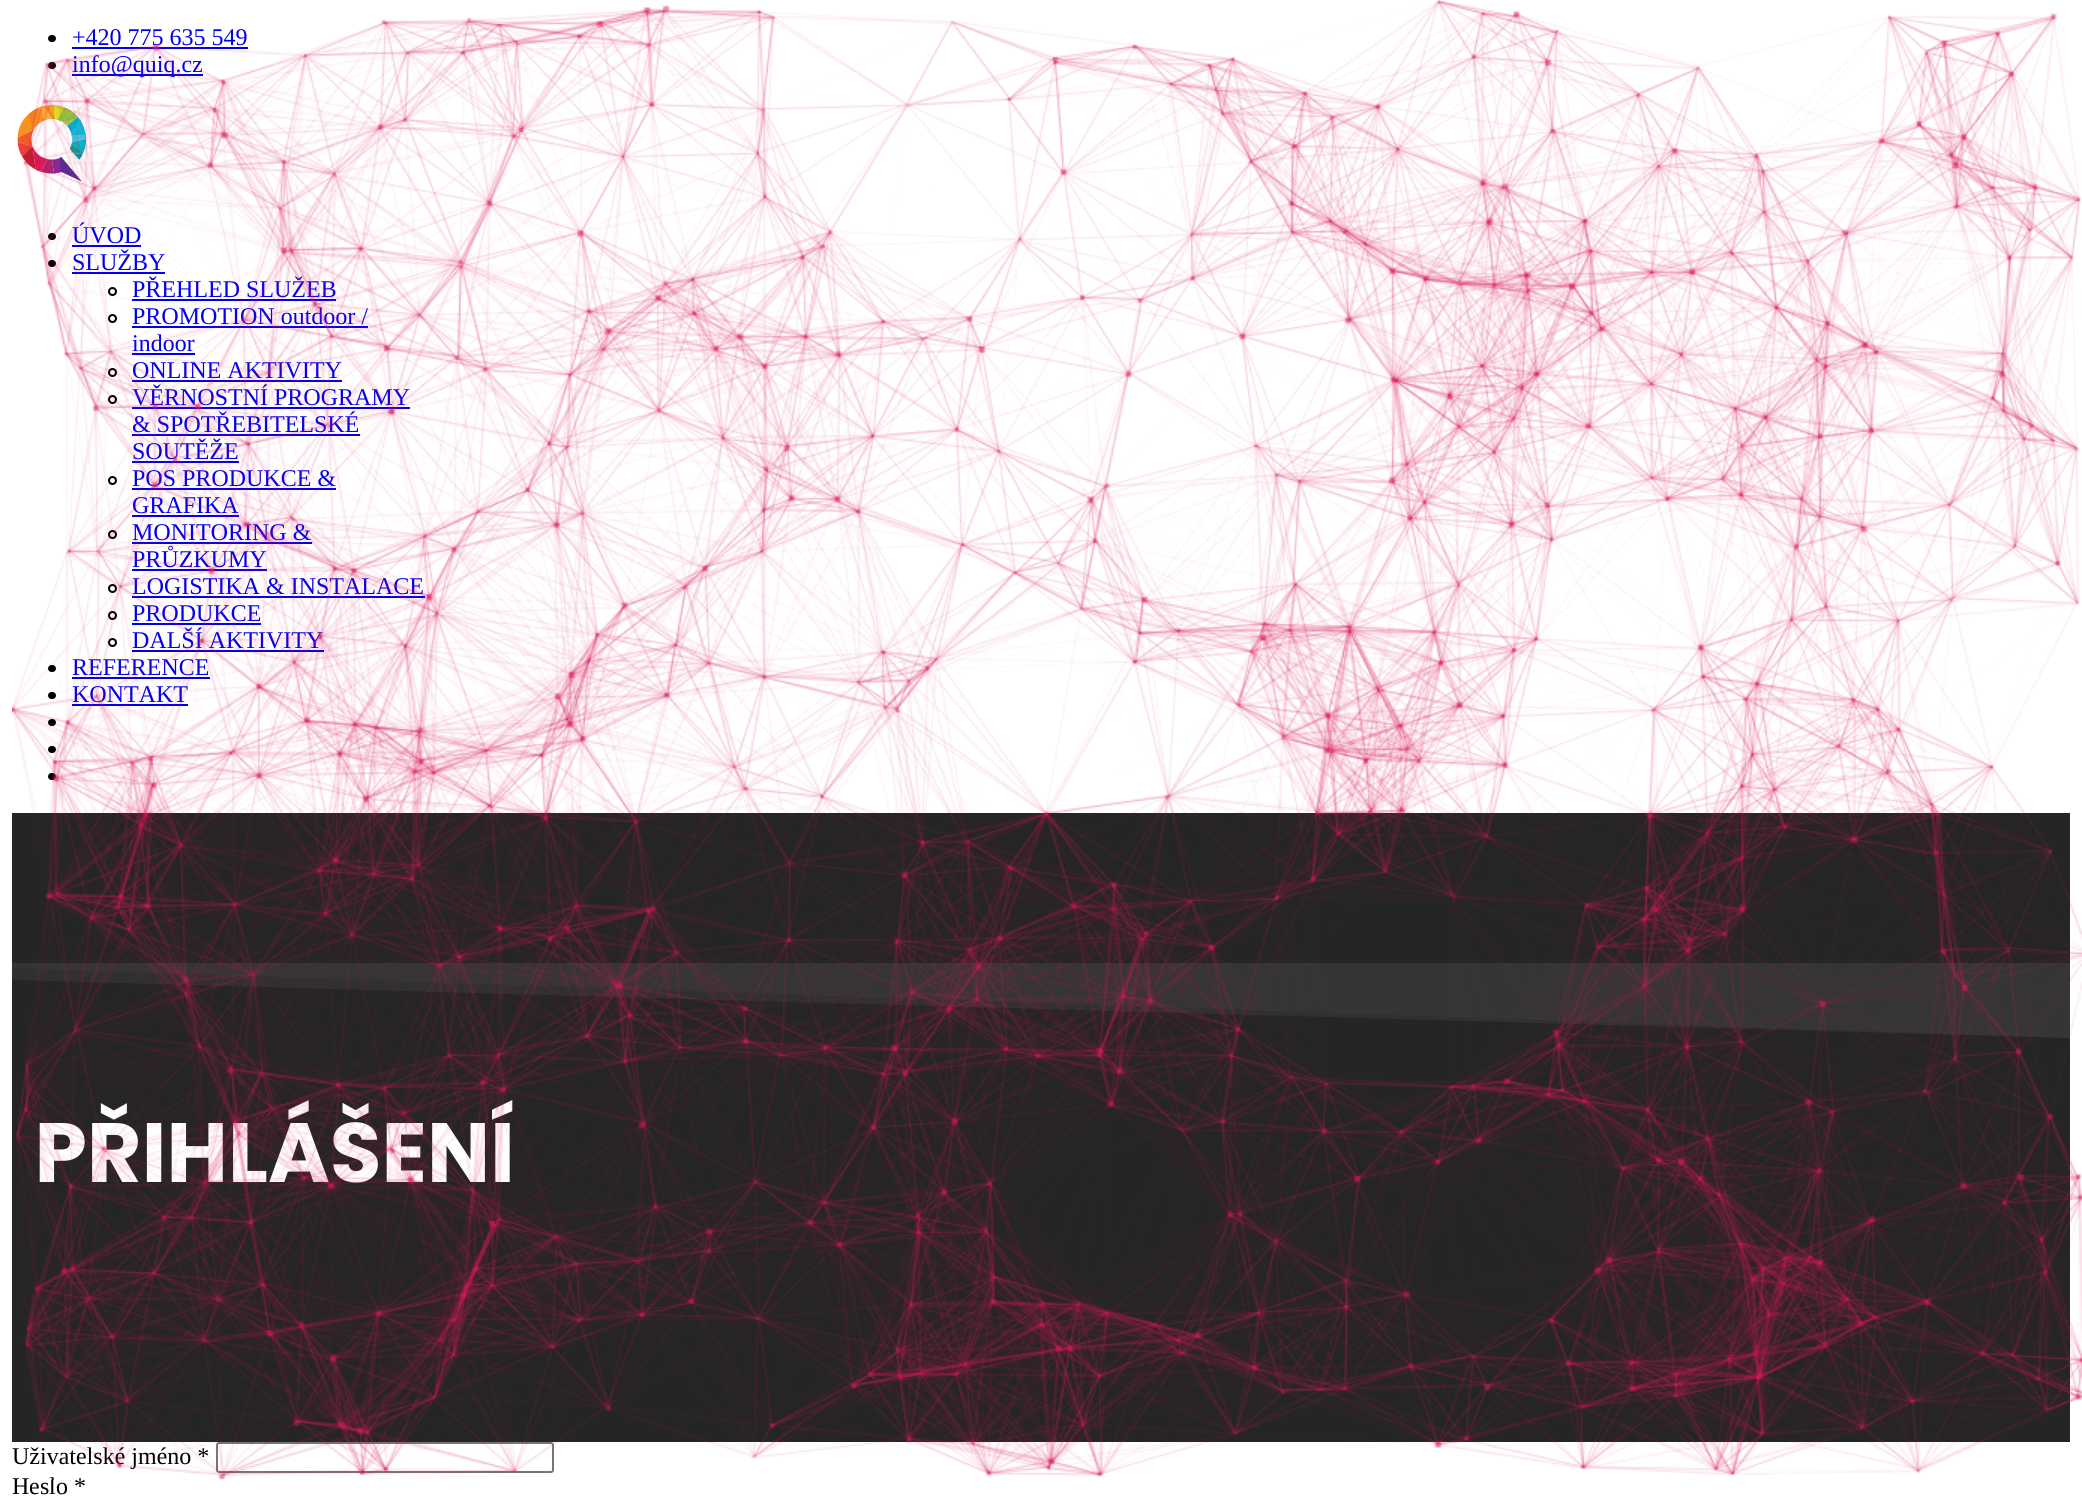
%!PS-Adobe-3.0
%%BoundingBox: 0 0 2082 1496
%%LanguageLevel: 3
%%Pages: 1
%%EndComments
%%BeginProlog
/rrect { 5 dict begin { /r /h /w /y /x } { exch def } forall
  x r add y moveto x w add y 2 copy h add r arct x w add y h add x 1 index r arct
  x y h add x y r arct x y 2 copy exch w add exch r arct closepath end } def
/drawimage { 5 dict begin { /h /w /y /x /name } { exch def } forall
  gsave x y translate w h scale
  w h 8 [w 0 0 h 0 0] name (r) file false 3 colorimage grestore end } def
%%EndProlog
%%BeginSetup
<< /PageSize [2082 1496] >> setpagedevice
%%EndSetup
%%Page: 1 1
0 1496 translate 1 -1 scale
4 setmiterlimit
1 setgray
0 0 2082 1496 rectfill
0 setgray
48 35 8 7 3.5 rrect fill
0 0 0.933 setrgbcolor
72 47 176 2 rectfill
0 setgray
48 62 8 7 3.5 rrect fill
0 0 0.933 setrgbcolor
72 74 131 2 rectfill
(images/1.raw) 17 105 69 77 drawimage
0 setgray
48 233 8 7 3.5 rrect fill
0 0 0.933 setrgbcolor
72 245 69 2 rectfill
0 setgray
48 260 8 7 3.5 rrect fill
0 0 0.933 setrgbcolor
72 272 93 2 rectfill
0 setgray
2 setlinewidth
newpath 112.5 291.5 3.5 0 360 arc closepath stroke
0 0 0.933 setrgbcolor
132 299 204 2 rectfill
0 setgray
newpath 112.5 318.5 3.5 0 360 arc closepath stroke
0 0 0.933 setrgbcolor
132 326 236 2 rectfill
132 353 63 2 rectfill
0 setgray
newpath 112.5 372.5 3.5 0 360 arc closepath stroke
0 0 0.933 setrgbcolor
132 380 210 2 rectfill
0 setgray
newpath 112.5 399.5 3.5 0 360 arc closepath stroke
0 0 0.933 setrgbcolor
132 407 278 2 rectfill
132 434 228 2 rectfill
132 461 107 2 rectfill
0 setgray
newpath 112.5 480.5 3.5 0 360 arc closepath stroke
0 0 0.933 setrgbcolor
132 488 204 2 rectfill
132 515 107 2 rectfill
0 setgray
newpath 112.5 534.5 3.5 0 360 arc closepath stroke
0 0 0.933 setrgbcolor
132 542 180 2 rectfill
132 569 135 2 rectfill
0 setgray
newpath 112.5 588.5 3.5 0 360 arc closepath stroke
0 0 0.933 setrgbcolor
132 596 293 2 rectfill
0 setgray
newpath 112.5 615.5 3.5 0 360 arc closepath stroke
0 0 0.933 setrgbcolor
132 623 129 2 rectfill
0 setgray
newpath 112.5 642.5 3.5 0 360 arc closepath stroke
0 0 0.933 setrgbcolor
132 650 192 2 rectfill
0 setgray
48 665 8 7 3.5 rrect fill
0 0 0.933 setrgbcolor
72 677 138 2 rectfill
0 setgray
48 692 8 7 3.5 rrect fill
0 0 0.933 setrgbcolor
72 704 116 2 rectfill
0 setgray
48 719 8 7 3.5 rrect fill
48 746 8 7 3.5 rrect fill
48 773 8 7 3.5 rrect fill
0.145 setgray
12 813 2058 629 rectfill
0.188 setgray
newpath 12 980 moveto 12 963 lineto 2070 963 lineto 2070 1038 lineto closepath fill
0.208 setgray
newpath 12 968 moveto 12 963 lineto 2070 963 lineto 2070 1038 lineto closepath fill
0.463 setgray
217 1443 336 29 2 rrect stroke
/LiberationSerif-Regular [24 0 0 -24 0 0] selectfont
0 0 0.933 setrgbcolor
72 45 moveto (+420 775 635 549) show
72 72 moveto (info@quiq.cz) show
72 243 moveto (ÚVOD) show
72 270 moveto (SLUŽBY) show
132 297 moveto (PŘEHLED SLUŽEB) show
132 324 moveto (PROMOTION outdoor /) show
132 351 moveto (indoor) show
132 378 moveto (ONLINE AKTIVITY) show
132 405 moveto (VĚRNOSTNÍ PROGRAMY) show
132 432 moveto (& SPOTŘEBITELSKÉ) show
132 459 moveto (SOUTĚŽE) show
132 486 moveto (POS PRODUKCE &) show
132 513 moveto (GRAFIKA) show
132 540 moveto (MONITORING &) show
132 567 moveto (PRŮZKUMY) show
132 594 moveto (LOGISTIKA & INSTALACE) show
132 621 moveto (PRODUKCE) show
132 648 moveto (DALŠÍ AKTIVITY) show
72 675 moveto (REFERENCE) show
72 702 moveto (KONTAKT) show
/Poppins-Bold [84 0 0 -84 0 0] selectfont
1 setgray
35 1182 moveto (PŘIHLÁŠENÍ) show
/LiberationSerif-Regular [24 0 0 -24 0 0] selectfont
0 setgray
12 1464 moveto (Uživatelské jméno *) show
12 1494 moveto (Heslo *) show
(images/2.raw) 12 0 2070 1480 drawimage
showpage
%%EOF
